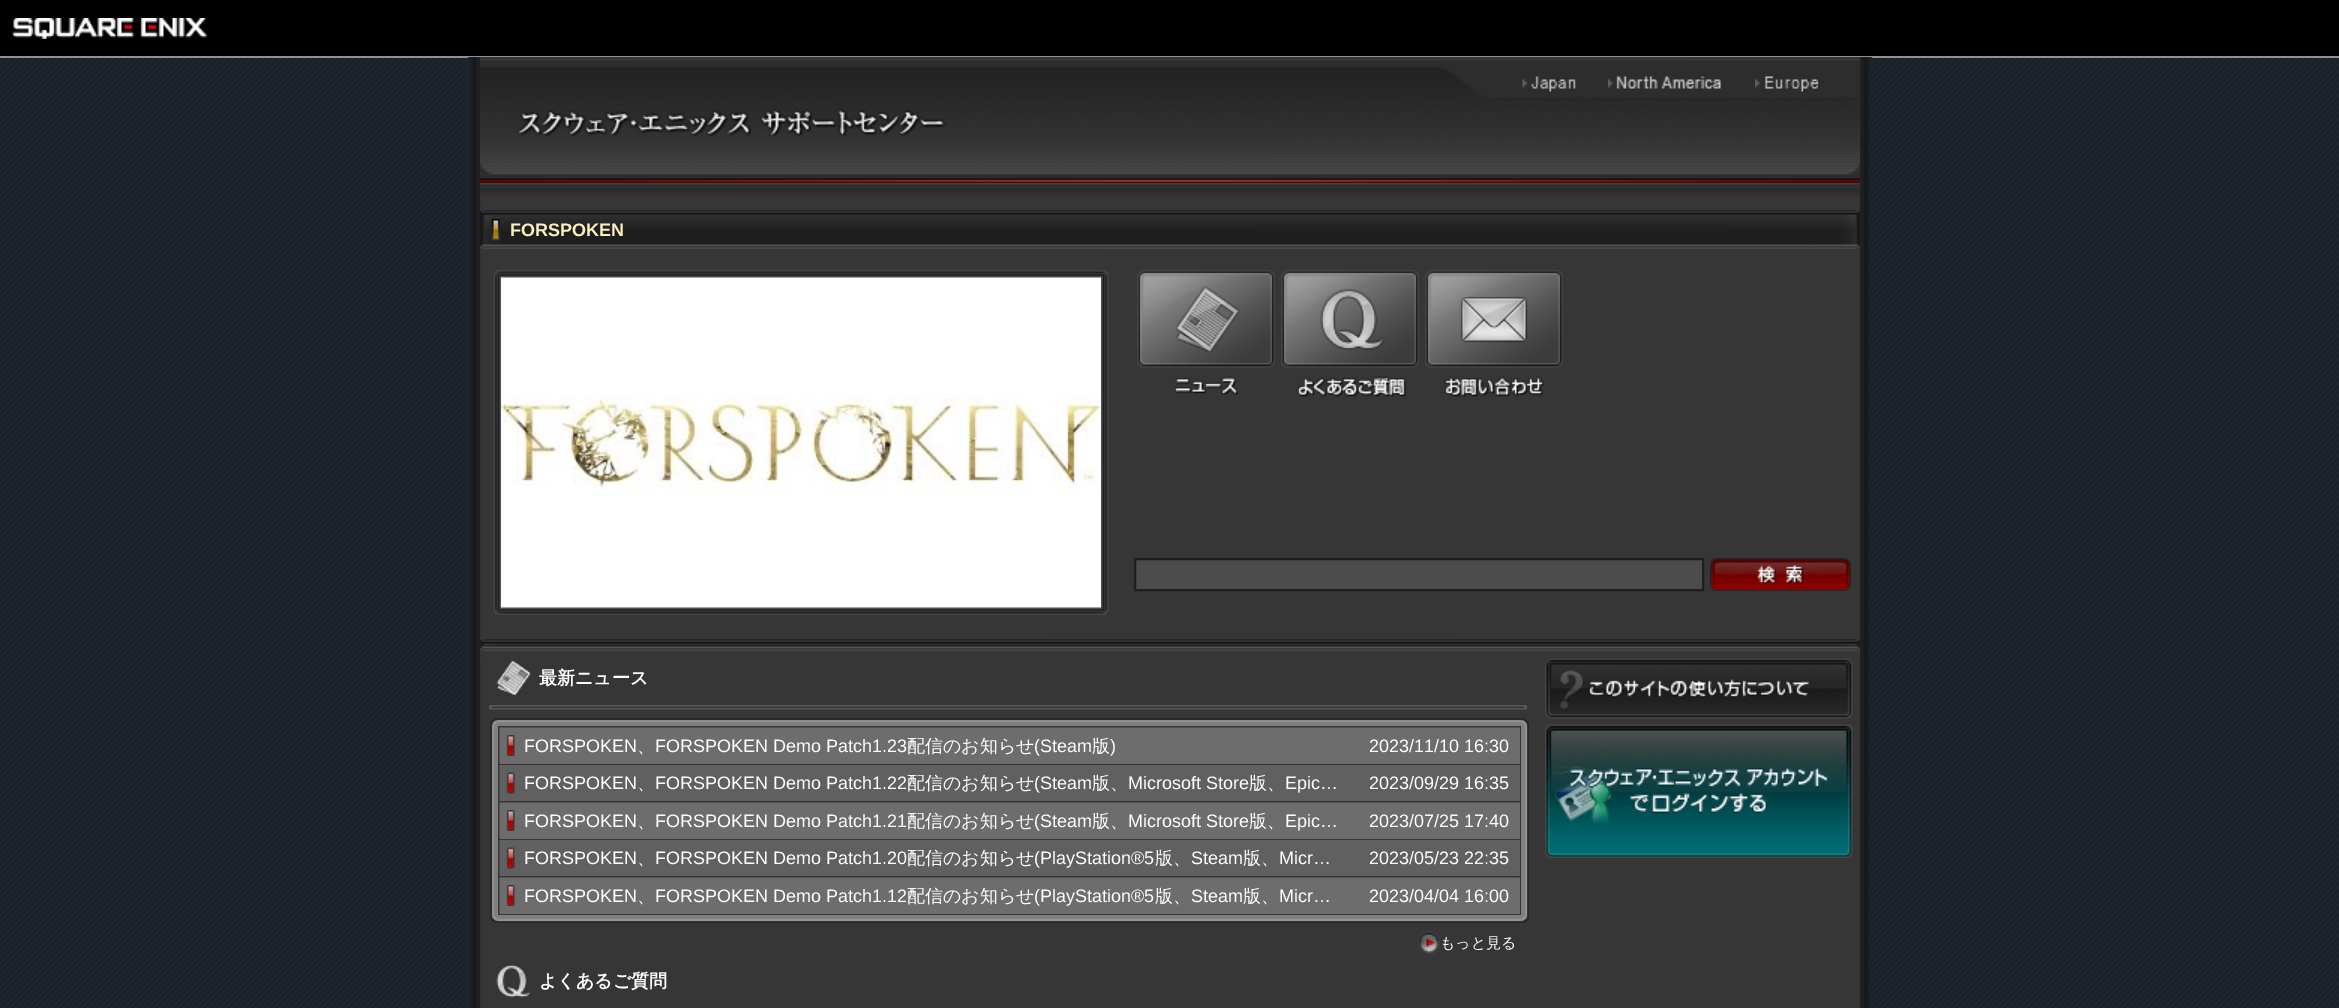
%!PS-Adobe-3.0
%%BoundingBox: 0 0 2339 1008
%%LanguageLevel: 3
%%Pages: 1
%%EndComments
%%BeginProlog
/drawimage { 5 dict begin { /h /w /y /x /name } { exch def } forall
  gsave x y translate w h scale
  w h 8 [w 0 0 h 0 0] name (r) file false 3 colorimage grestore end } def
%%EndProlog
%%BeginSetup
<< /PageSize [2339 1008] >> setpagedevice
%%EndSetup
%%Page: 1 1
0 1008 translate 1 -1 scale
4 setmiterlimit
1 setgray
0 0 2339 1008 rectfill
(images/1.raw) 0 58 2339 950 drawimage
0 setgray
0 0 2339 56 rectfill
(images/2.raw) 12 18 195 21 drawimage
0.573 setgray
0 56 2339 2 rectfill
(images/3.raw) 467 57 1406 951 drawimage
(images/4.raw) 480 57 1380 139 drawimage
(images/5.raw) 1522 76 55 16 drawimage
(images/6.raw) 1608 76 113 13 drawimage
(images/7.raw) 1755 76 65 16 drawimage
(images/8.raw) 480 210 1380 39 drawimage
(images/9.raw) 493 270 616 345 drawimage
(images/10.raw) 501 277 600 331 drawimage
(images/11.raw) 1137 270 138 98 drawimage
(images/12.raw) 1173 376 65 19 drawimage
(images/13.raw) 1281 270 138 98 drawimage
(images/14.raw) 1296 376 110 22 drawimage
(images/15.raw) 1425 270 138 98 drawimage
(images/16.raw) 1444 376 100 22 drawimage
0.298 setgray
newpath 1135 559 moveto 1703 559 lineto 1703 590 lineto 1135 590 lineto closepath gsave fill grestore
0.118 setgray
2 setlinewidth
stroke
(images/17.raw) 1710 558 141 33 drawimage
(images/18.raw) 1757 565 47 19 drawimage
(images/29.raw) 1545 658 308 61 drawimage
(images/19.raw) 480 639 1380 20 drawimage
(images/20.raw) 489 705 1038 5 drawimage
(images/21.raw) 496 660 35 36 drawimage
(images/22.raw) 490 718 1039 8 drawimage
(images/23.raw) 490 726 1039 189 drawimage
0.212 setgray
498 726 1023 189 rectfill
0.427 setgray
500 728 1020 36 rectfill
(images/24.raw) 499 727 1021 37 drawimage
0.376 setgray
515 765 1005 36 rectfill
(images/25.raw) 499 765 16 36 drawimage
0.427 setgray
500 803 1020 36 rectfill
(images/24.raw) 499 802 1021 37 drawimage
0.376 setgray
515 840 1005 36 rectfill
(images/25.raw) 499 840 16 36 drawimage
0.427 setgray
500 878 1020 36 rectfill
(images/24.raw) 499 877 1021 37 drawimage
(images/26.raw) 490 915 1039 8 drawimage
(images/27.raw) 1417 931 23 23 drawimage
(images/28.raw) 496 964 35 34 drawimage
(images/30.raw) 1545 724 308 134 drawimage
/LiberationSans-Bold [18 0 0 -18 0 0] selectfont
1 0.941 0.745 setrgbcolor
510 236 moveto (FORSPOKEN) show
/WenQuanYiZenHei-Bold [18 0 0 -18 0 0] selectfont
1 setgray
539 684 moveto (最新ニュース) show
/LiberationSans-Regular [18 0 0 -18 0 0] selectfont
524 752 moveto (FORSPOKEN) show
/WenQuanYiZenHei-Medium [18 0 0 -18 0 0] selectfont
637 752 moveto (、) show
/LiberationSans-Regular [18 0 0 -18 0 0] selectfont
655 752 moveto (FORSPOKEN Demo Patch1.23) show
/WenQuanYiZenHei-Medium [18 0 0 -18 0 0] selectfont
907 752 moveto (配信のお知らせ) show
/LiberationSans-Regular [18 0 0 -18 0 0] selectfont
1034 752 moveto (\(Steam) show
/WenQuanYiZenHei-Medium [18 0 0 -18 0 0] selectfont
1092 752 moveto (版) show
/LiberationSans-Regular [18 0 0 -18 0 0] selectfont
1110 752 moveto (\)) show
1369 752 moveto (2023/11/10 16:30) show
524 789 moveto (FORSPOKEN) show
/WenQuanYiZenHei-Medium [18 0 0 -18 0 0] selectfont
637 789 moveto (、) show
/LiberationSans-Regular [18 0 0 -18 0 0] selectfont
655 789 moveto (FORSPOKEN Demo Patch1.22) show
/WenQuanYiZenHei-Medium [18 0 0 -18 0 0] selectfont
907 789 moveto (配信のお知らせ) show
/LiberationSans-Regular [18 0 0 -18 0 0] selectfont
1034 789 moveto (\(Steam) show
/WenQuanYiZenHei-Medium [18 0 0 -18 0 0] selectfont
1092 789 moveto (版、) show
/LiberationSans-Regular [18 0 0 -18 0 0] selectfont
1128 789 moveto (Microsoft Store) show
/WenQuanYiZenHei-Medium [18 0 0 -18 0 0] selectfont
1249 789 moveto (版、) show
/LiberationSans-Regular [18 0 0 -18 0 0] selectfont
1285 789 moveto (Epic…) show
1369 789 moveto (2023/09/29 16:35) show
524 827 moveto (FORSPOKEN) show
/WenQuanYiZenHei-Medium [18 0 0 -18 0 0] selectfont
637 827 moveto (、) show
/LiberationSans-Regular [18 0 0 -18 0 0] selectfont
655 827 moveto (FORSPOKEN Demo Patch1.21) show
/WenQuanYiZenHei-Medium [18 0 0 -18 0 0] selectfont
907 827 moveto (配信のお知らせ) show
/LiberationSans-Regular [18 0 0 -18 0 0] selectfont
1034 827 moveto (\(Steam) show
/WenQuanYiZenHei-Medium [18 0 0 -18 0 0] selectfont
1092 827 moveto (版、) show
/LiberationSans-Regular [18 0 0 -18 0 0] selectfont
1128 827 moveto (Microsoft Store) show
/WenQuanYiZenHei-Medium [18 0 0 -18 0 0] selectfont
1249 827 moveto (版、) show
/LiberationSans-Regular [18 0 0 -18 0 0] selectfont
1285 827 moveto (Epic…) show
1369 827 moveto (2023/07/25 17:40) show
524 864 moveto (FORSPOKEN) show
/WenQuanYiZenHei-Medium [18 0 0 -18 0 0] selectfont
637 864 moveto (、) show
/LiberationSans-Regular [18 0 0 -18 0 0] selectfont
655 864 moveto (FORSPOKEN Demo Patch1.20) show
/WenQuanYiZenHei-Medium [18 0 0 -18 0 0] selectfont
907 864 moveto (配信のお知らせ) show
/LiberationSans-Regular [18 0 0 -18 0 0] selectfont
1034 864 moveto (\(PlayStation®5) show
/WenQuanYiZenHei-Medium [18 0 0 -18 0 0] selectfont
1155 864 moveto (版、) show
/LiberationSans-Regular [18 0 0 -18 0 0] selectfont
1191 864 moveto (Steam) show
/WenQuanYiZenHei-Medium [18 0 0 -18 0 0] selectfont
1243 864 moveto (版、) show
/LiberationSans-Regular [18 0 0 -18 0 0] selectfont
1279 864 moveto (Micr…) show
1369 864 moveto (2023/05/23 22:35) show
524 902 moveto (FORSPOKEN) show
/WenQuanYiZenHei-Medium [18 0 0 -18 0 0] selectfont
637 902 moveto (、) show
/LiberationSans-Regular [18 0 0 -18 0 0] selectfont
655 902 moveto (FORSPOKEN Demo Patch1.12) show
/WenQuanYiZenHei-Medium [18 0 0 -18 0 0] selectfont
907 902 moveto (配信のお知らせ) show
/LiberationSans-Regular [18 0 0 -18 0 0] selectfont
1034 902 moveto (\(PlayStation®5) show
/WenQuanYiZenHei-Medium [18 0 0 -18 0 0] selectfont
1155 902 moveto (版、) show
/LiberationSans-Regular [18 0 0 -18 0 0] selectfont
1191 902 moveto (Steam) show
/WenQuanYiZenHei-Medium [18 0 0 -18 0 0] selectfont
1243 902 moveto (版、) show
/LiberationSans-Regular [18 0 0 -18 0 0] selectfont
1279 902 moveto (Micr…) show
1369 902 moveto (2023/04/04 16:00) show
/WenQuanYiZenHei-Medium [15 0 0 -15 0 0] selectfont
1440 948 moveto (もっと見る) show
/WenQuanYiZenHei-Bold [18 0 0 -18 0 0] selectfont
539 987 moveto (よくあるご質問) show
showpage
%%EOF
